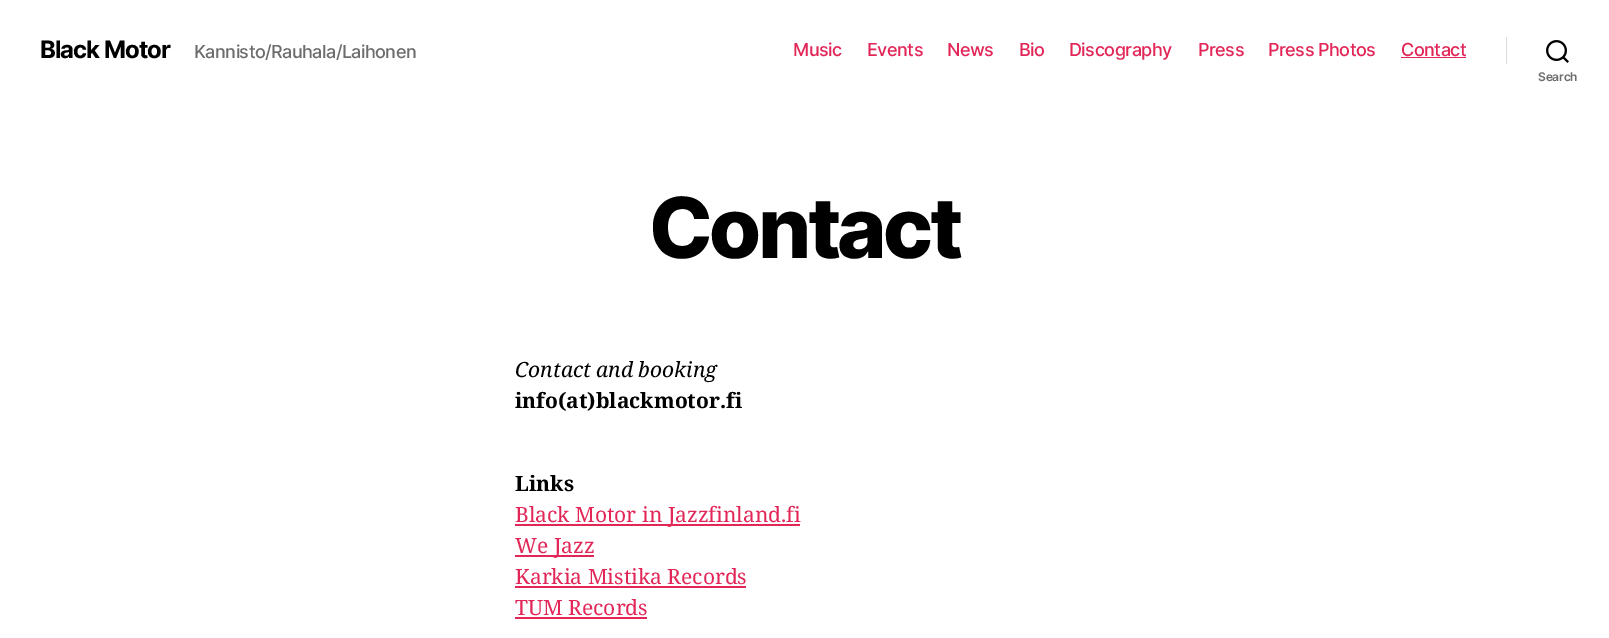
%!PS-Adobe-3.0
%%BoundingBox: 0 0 1609 638
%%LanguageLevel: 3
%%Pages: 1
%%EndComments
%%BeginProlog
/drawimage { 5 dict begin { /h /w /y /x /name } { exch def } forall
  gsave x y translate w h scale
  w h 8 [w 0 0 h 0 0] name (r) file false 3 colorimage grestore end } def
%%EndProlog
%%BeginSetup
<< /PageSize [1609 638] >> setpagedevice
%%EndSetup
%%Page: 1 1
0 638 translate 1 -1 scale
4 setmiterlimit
1 setgray
0 0 1609 638 rectfill
0.886 0.149 0.345 setrgbcolor
1401 57 65 1 rectfill
0.859 setgray
1506 37 1 27 rectfill
(images/1.raw) 1546 40 23 23 drawimage
0.886 0.149 0.345 setrgbcolor
515 524 285 2 rectfill
515 555 79 2 rectfill
515 586 231 2 rectfill
515 617 132 2 rectfill
/Inter-Bold [24 0 0 -24 0 0] selectfont
0 setgray
40 58 moveto -1 0 (Black Motor) ashow
/Inter-Medium [18 0 0 -18 0 0] selectfont
0.427 setgray
194 58 moveto -0.55 0 (Kannisto/Rauhala/Laihonen) ashow
0.886 0.149 0.345 setrgbcolor
793 56 moveto -0.5 0 (Music) ashow
867 56 moveto -0.5 0 (Events) ashow
947 56 moveto -0.5 0 (News) ashow
1019 56 moveto -0.5 0 (Bio) ashow
1069 56 moveto -0.5 0 (Discography) ashow
1198 56 moveto -0.5 0 (Press) ashow
1268 56 moveto -0.5 0 (Press Photos) ashow
1401 56 moveto -0.5 0 (Contact) ashow
/Inter-SemiBold [12 0 0 -12 0 0] selectfont
0.427 setgray
1538 81 moveto -0.25 0 (Search) ashow
/Inter-ExtraBold [84 0 0 -84 0 0] selectfont
0 setgray
649 258 moveto -3.5 0 (Contact) ashow
/NotoSerif-Italic [21 0 0 -21 0 0] selectfont
515 377 moveto (Contact and booking) show
/NotoSerif-Bold [21 0 0 -21 0 0] selectfont
515 408 moveto (info\(at\)blackmotor.fi) show
515 491 moveto (Links) show
/NotoSerif-Regular [21 0 0 -21 0 0] selectfont
0.886 0.149 0.345 setrgbcolor
515 522 moveto (Black Motor in Jazzfinland.fi) show
515 553 moveto (We Jazz) show
515 584 moveto (Karkia Mistika Records) show
515 615 moveto (TUM Records) show
showpage
%%EOF
